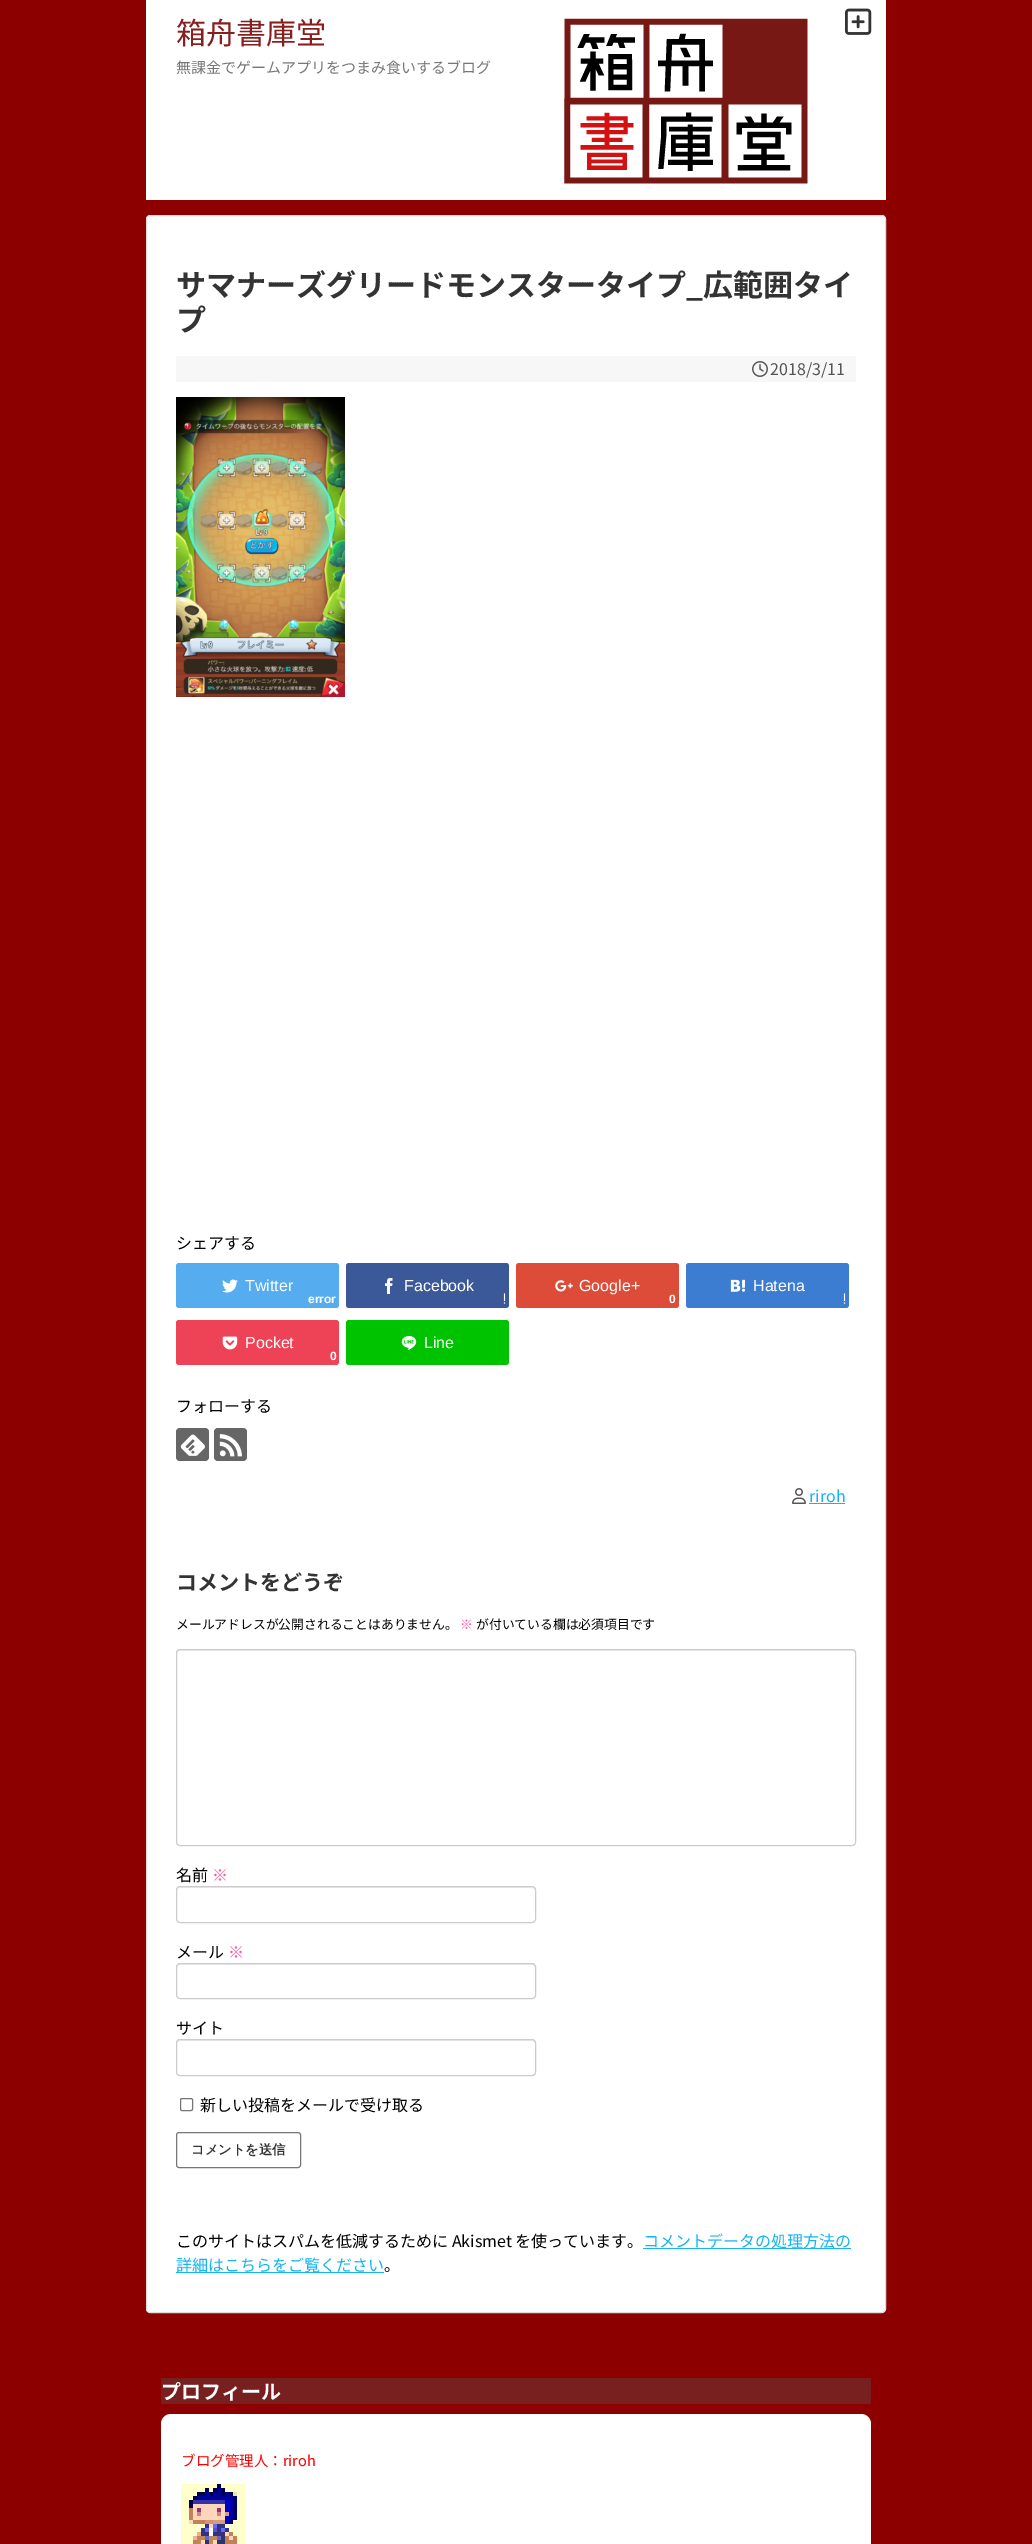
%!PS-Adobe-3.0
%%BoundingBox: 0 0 1032 2544
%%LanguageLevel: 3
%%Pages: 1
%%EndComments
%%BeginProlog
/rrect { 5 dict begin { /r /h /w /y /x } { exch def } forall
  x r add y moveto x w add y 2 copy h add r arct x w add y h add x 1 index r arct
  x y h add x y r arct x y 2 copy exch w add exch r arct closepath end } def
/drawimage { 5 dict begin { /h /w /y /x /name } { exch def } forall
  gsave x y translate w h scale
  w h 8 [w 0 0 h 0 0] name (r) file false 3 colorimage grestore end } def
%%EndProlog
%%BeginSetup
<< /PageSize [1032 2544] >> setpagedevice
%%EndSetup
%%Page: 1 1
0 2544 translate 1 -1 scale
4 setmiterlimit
0.549 0 0 setrgbcolor
0 0 1032 2544 rectfill
(images/1.raw) 146 0 740 200 drawimage
(images/2.raw) 845 8 27 27 drawimage
1 setgray
146.5 215.5 739 2097 3.5 rrect gsave fill grestore
0.867 setgray
stroke
0.969 setgray
176 356 680 26 rectfill
(images/3.raw) 752 361 16 16 drawimage
(images/4.raw) 176 397 169 300 drawimage
0.333 0.675 0.933 setrgbcolor
176 1263 163 45 3 rrect fill
(images/5.raw) 222 1279 16 14 drawimage
0.231 0.349 0.596 setrgbcolor
346 1263 163 45 3 rrect fill
(images/6.raw) 385 1278 8 16 drawimage
(images/7.raw) 503 1293 3 11 drawimage
0.867 0.294 0.224 setrgbcolor
516 1263 163 45 3 rrect fill
(images/8.raw) 555 1280 18 12 drawimage
0.235 0.49 0.82 setrgbcolor
686 1263 163 45 3 rrect fill
(images/9.raw) 730 1279 16 13 drawimage
(images/10.raw) 843 1293 3 11 drawimage
0.933 0.259 0.341 setrgbcolor
176 1320 163 45 3 rrect fill
(images/11.raw) 222 1336 16 14 drawimage
0 0.765 0 setrgbcolor
346 1320 163 45 3 rrect fill
(images/12.raw) 401 1336 16 14 drawimage
0.4 setgray
176 1428 33 33 4 rrect fill
(images/13.raw) 180 1434 25 22 drawimage
214 1428 33 33 4 rrect fill
(images/14.raw) 219 1434 23 23 drawimage
(images/15.raw) 792 1488 14 16 drawimage
0.075 0.706 0.937 setrgbcolor
809 1503 36 1 rectfill
0.925 setgray
newpath 180 1651 moveto 852 1651 lineto 854 1651 855 1652 855 1654 curveto 855 1653 lineto 855 1651 854 1650 852 1650 curveto 180 1650 lineto 178 1650 177 1651 177 1653 curveto 177 1654 lineto 177 1652 178 1651 180 1651 curveto closepath fill
0.8 setgray
176.5 1649.5 679 196 3.5 rrect stroke
0.925 setgray
newpath 180 1888 moveto 532 1888 lineto 534 1888 535 1889 535 1891 curveto 535 1889 534 1887 532 1887 curveto 180 1887 lineto 178 1888 lineto 177 1891 lineto 177 1889 178 1888 180 1888 curveto closepath fill
0.8 setgray
176.5 1886.5 359 36 3.5 rrect stroke
0.925 setgray
newpath 180 1965 moveto 532 1965 lineto 534 1965 535 1966 535 1968 curveto 535 1966 534 1964 532 1964 curveto 180 1964 lineto 178 1965 lineto 177 1968 lineto 177 1966 178 1965 180 1965 curveto closepath fill
0.8 setgray
176.5 1963.5 359 35 3.5 rrect stroke
0.925 setgray
newpath 180 2041 moveto 532 2041 lineto 534 2041 535 2042 535 2044 curveto 535 2042 534 2040 532 2040 curveto 180 2040 lineto 178 2041 lineto 177 2044 lineto 177 2042 178 2041 180 2041 curveto closepath fill
0.8 setgray
176.5 2039.5 359 36 3.5 rrect stroke
0.463 setgray
180.5 2098.5 12 12 1.5 rrect stroke
0.467 setgray
176.5 2132.5 124 35 2.5 rrect stroke
0.075 0.706 0.937 setrgbcolor
643 2248 208 1 rectfill
176 2272 208 1 rectfill
0.471 0.122 0.122 setrgbcolor
161 2378 710 26 rectfill
1 setgray
161 2414 710 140 10 rrect fill
(images/16.raw) 181 2484 64 60 drawimage
/NotoSansJP-Regular [30 0 0 -30 0 0] selectfont
0.529 0.122 0.122 setrgbcolor
176 44 moveto (箱舟書庫堂) show
/NotoSansJP-Regular [15 0 0 -15 0 0] selectfont
0.467 setgray
176 73 moveto (無課金でゲームアプリをつまみ食いするブログ) show
/NotoSansJP-Bold [30 0 0 -30 0 0] selectfont
0.2 setgray
176 296 moveto (サマナーズグリードモンスタータイプ_広範囲タイ) show
176 331 moveto (プ) show
/NotoSansJP-Regular [16 0 0 -16 0 0] selectfont
0.333 setgray
770 375 moveto (2018/3/11) show
0 setgray
176 1249 moveto (シェアする) show
/LiberationSans-Regular [16 0 0 -16 0 0] selectfont
1 setgray
245 1291 moveto (Twitter) show
/LiberationSans-Bold [12 0 0 -12 0 0] selectfont
308 1303 moveto (error) show
/LiberationSans-Regular [16 0 0 -16 0 0] selectfont
404 1291 moveto (Facebook) show
579 1291 moveto (Google+) show
/LiberationSans-Bold [12 0 0 -12 0 0] selectfont
669 1303 moveto (0) show
/LiberationSans-Regular [16 0 0 -16 0 0] selectfont
753 1291 moveto (Hatena) show
245 1348 moveto (Pocket) show
/LiberationSans-Bold [12 0 0 -12 0 0] selectfont
330 1360 moveto (0) show
/LiberationSans-Regular [16 0 0 -16 0 0] selectfont
424 1348 moveto (Line) show
/NotoSansJP-Regular [16 0 0 -16 0 0] selectfont
0 setgray
176 1412 moveto (フォローする) show
0.075 0.706 0.937 setrgbcolor
809 1502 moveto (riroh) show
/NotoSansJP-Bold [21 0 0 -21 0 0] selectfont
0.2 setgray
176 1590 moveto (コメントをどうぞ) show
/NotoSansJP-Regular [12.8 0 0 -12.8 0 0] selectfont
0 setgray
176 1629 moveto (メールアドレスが公開されることはありません。) show
0.996 0.337 0.667 setrgbcolor
460 1629 moveto (※) show
0 setgray
476 1629 moveto (が付いている欄は必須項目です) show
/NotoSansJP-Regular [16 0 0 -16 0 0] selectfont
176 1881 moveto (名前) show
0.996 0.337 0.667 setrgbcolor
212 1881 moveto (※) show
0 setgray
176 1958 moveto (メール) show
0.996 0.337 0.667 setrgbcolor
228 1958 moveto (※) show
0 setgray
176 2034 moveto (サイト) show
200 2111 moveto (新しい投稿をメールで受け取る) show
/WenQuanYiZenHei-Bold [13.25 0 0 -13.25 0 0] selectfont
0.2 setgray
191 2154 moveto (コメントを送信) show
/NotoSansJP-Regular [16 0 0 -16 0 0] selectfont
0 setgray
176 2247 moveto (このサイトはスパムを低減するために Akismet を使っています。) show
0.075 0.706 0.937 setrgbcolor
643 2247 moveto (コメントデータの処理方法の) show
176 2271 moveto (詳細はこちらをご覧ください) show
0 setgray
384 2271 moveto (。) show
/NotoSansJP-Bold [20 0 0 -20 0 0] selectfont
1 setgray
161 2399 moveto (プロフィール) show
/NotoSansJP-Regular [14.5 0 0 -14.5 0 0] selectfont
1 0 0 setrgbcolor
181 2466 moveto (ブログ管理人：riroh) show
showpage
%%EOF
